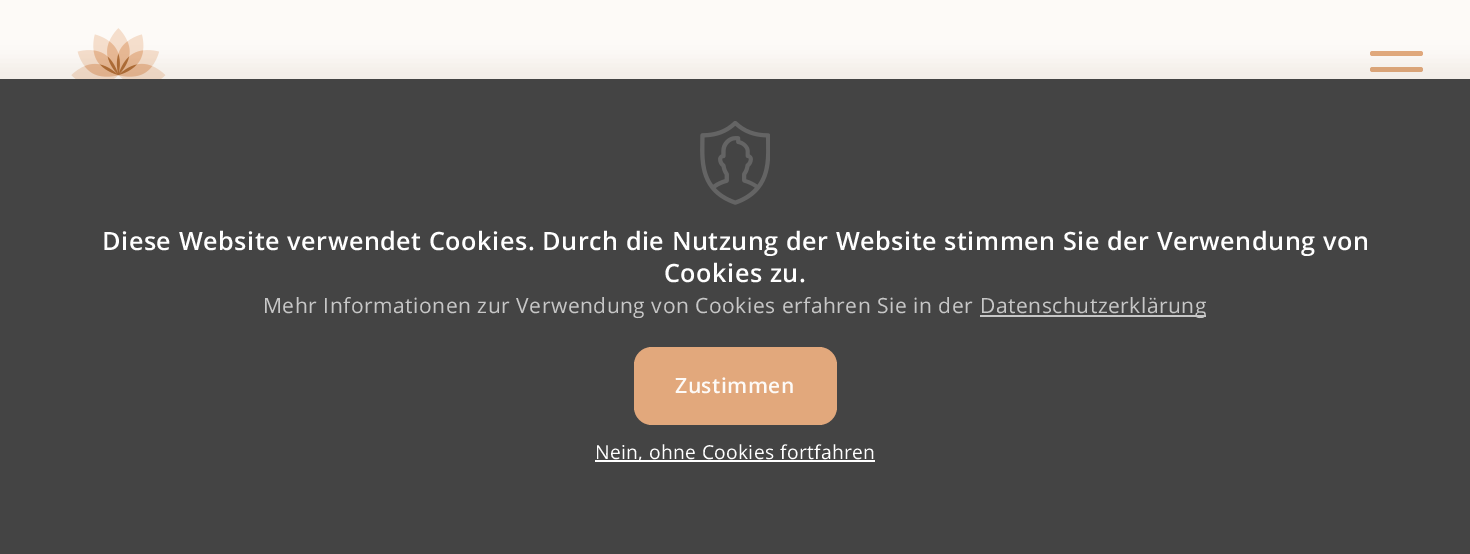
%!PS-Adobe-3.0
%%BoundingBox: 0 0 1470 554
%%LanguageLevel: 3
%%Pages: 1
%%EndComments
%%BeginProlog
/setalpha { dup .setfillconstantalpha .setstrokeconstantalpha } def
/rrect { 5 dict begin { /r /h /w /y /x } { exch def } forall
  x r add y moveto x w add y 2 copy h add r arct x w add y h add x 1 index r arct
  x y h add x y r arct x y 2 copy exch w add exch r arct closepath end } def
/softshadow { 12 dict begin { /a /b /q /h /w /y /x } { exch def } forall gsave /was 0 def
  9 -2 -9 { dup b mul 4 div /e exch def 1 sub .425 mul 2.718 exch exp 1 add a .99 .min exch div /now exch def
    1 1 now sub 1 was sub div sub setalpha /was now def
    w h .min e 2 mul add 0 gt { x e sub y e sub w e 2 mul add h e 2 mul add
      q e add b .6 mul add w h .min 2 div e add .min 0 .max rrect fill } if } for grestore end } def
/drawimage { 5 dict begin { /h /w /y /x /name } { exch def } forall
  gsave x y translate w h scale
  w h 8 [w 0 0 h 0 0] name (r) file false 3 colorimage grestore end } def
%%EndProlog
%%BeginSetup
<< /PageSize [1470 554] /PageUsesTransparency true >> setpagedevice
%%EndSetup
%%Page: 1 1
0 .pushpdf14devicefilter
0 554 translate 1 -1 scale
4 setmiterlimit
0.992 0.98 0.969 setrgbcolor
0 0 1470 554 rectfill
(images/1.raw) 71 28 95 51 drawimage
0.886 0.659 0.486 setrgbcolor
1370 51 53 5 2.5 rrect fill
1370 67 53 5 2.5 rrect fill
0.271 0.176 0.027 setrgbcolor
-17 61 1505 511 0 9 0.05 softshadow
0.267 setgray
0 79 1470 475 rectfill
(images/2.raw) 700 121 70 84 drawimage
0.78 setgray
980 315 226 2 rectfill
0.886 0.659 0.486 setrgbcolor
634 347 203 78 18 rrect fill
1 setgray
595 460 280 2 rectfill
/OpenSans-SemiBold [25.2 0 0 -25.2 0 0] selectfont
102 250 moveto 0.53 0 (Diese Website verwendet Cookies. Durch die Nutzung der Website stimmen Sie der Verwendung von) ashow
664 282 moveto 0.53 0 (Cookies zu.) ashow
/OpenSans-Regular [21 0 0 -21 0 0] selectfont
0.78 setgray
263 313 moveto 0.53 0 (Mehr Informationen zur Verwendung von Cookies erfahren Sie in der) ashow
980 313 moveto 0.53 0 (Datenschutzerklärung) ashow
/OpenSans-SemiBold [21 0 0 -21 0 0] selectfont
0.992 0.98 0.969 setrgbcolor
675 393 moveto 0.5 0 (Zustimmen) ashow
/OpenSans-Regular [19.25 0 0 -19.25 0 0] selectfont
1 setgray
595 459 moveto 0.35 0 (Nein, ohne Cookies fortfahren) ashow
.poppdf14devicefilter showpage
%%EOF
